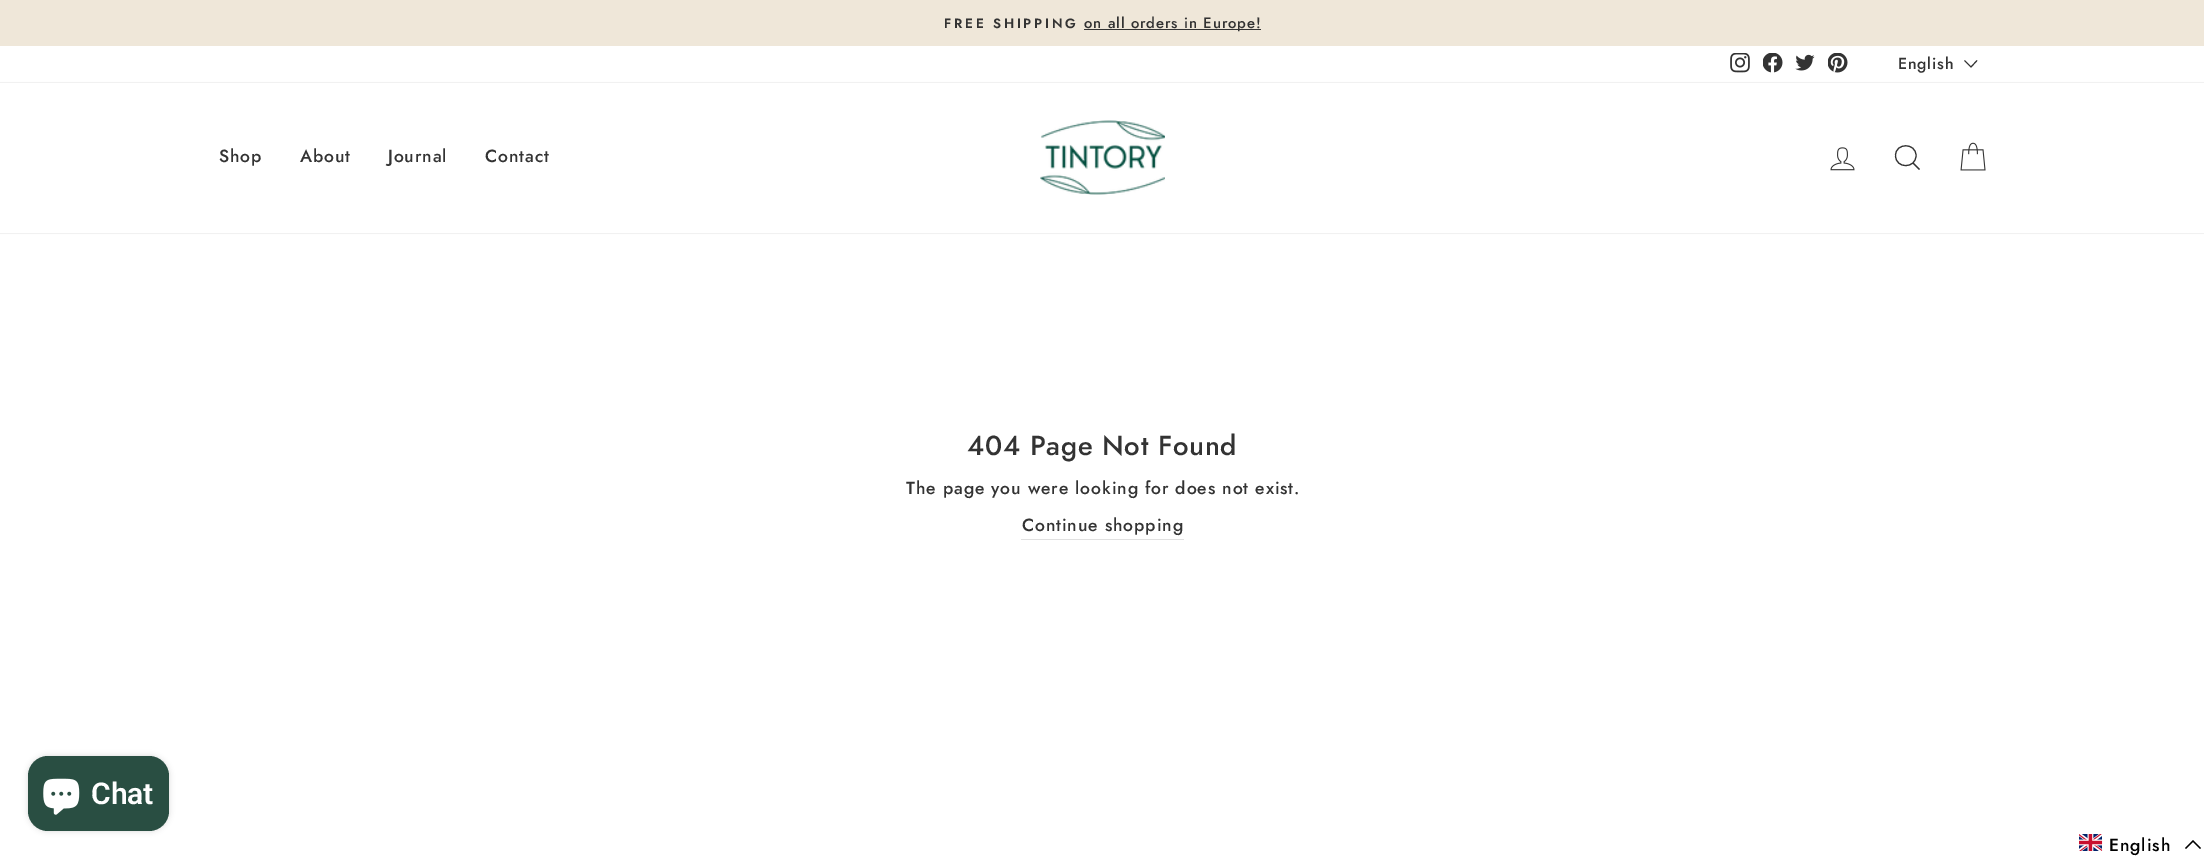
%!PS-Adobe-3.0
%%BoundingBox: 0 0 2204 857
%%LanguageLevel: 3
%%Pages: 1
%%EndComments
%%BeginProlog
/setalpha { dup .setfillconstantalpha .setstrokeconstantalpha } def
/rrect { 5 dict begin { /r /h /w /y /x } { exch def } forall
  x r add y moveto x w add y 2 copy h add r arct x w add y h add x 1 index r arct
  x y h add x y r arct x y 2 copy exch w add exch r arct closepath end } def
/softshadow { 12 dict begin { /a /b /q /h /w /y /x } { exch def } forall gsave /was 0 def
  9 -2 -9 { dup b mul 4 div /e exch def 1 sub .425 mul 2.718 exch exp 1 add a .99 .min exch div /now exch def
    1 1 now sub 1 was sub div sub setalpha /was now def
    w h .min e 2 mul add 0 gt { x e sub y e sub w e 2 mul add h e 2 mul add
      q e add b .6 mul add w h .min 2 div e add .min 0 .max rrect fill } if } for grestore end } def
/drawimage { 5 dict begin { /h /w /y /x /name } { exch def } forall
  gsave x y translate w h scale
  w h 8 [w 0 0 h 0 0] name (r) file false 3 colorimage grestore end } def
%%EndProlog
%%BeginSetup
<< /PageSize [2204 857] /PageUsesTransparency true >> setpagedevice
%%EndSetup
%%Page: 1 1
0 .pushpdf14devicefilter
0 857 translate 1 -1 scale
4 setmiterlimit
1 setgray
0 0 2204 857 rectfill
0.937 0.906 0.851 setrgbcolor
0 0 2204 46 rectfill
0.2 setgray
1084 29 177 1 rectfill
(images/1.raw) 1730 53 20 20 drawimage
(images/2.raw) 1763 53 20 20 drawimage
(images/3.raw) 1795 54 20 17 drawimage
(images/4.raw) 1828 53 20 20 drawimage
newpath 1964.5 60.5 moveto 1971 67 lineto 1977 60.5 lineto stroke
0 setgray
0 83 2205 150 0 0.5 0.2 softshadow
1 setgray
0 83 2204 150 rectfill
(images/5.raw) 1040 120 125 75 drawimage
(images/6.raw) 1830 147 25 24 drawimage
0.2 setgray
1.1 setlinewidth
newpath 1916 155.5 moveto 1916 169 1895.5 169 1895.5 155.5 curveto 1895.5 142.5 1916 142.5 1916 155.5 curveto closepath 1919.5 169.5 moveto 1913 163 lineto stroke
(images/7.raw) 1960 142 26 29 drawimage
0.878 setgray
1021 539 163 1 rectfill
0 setgray
28 756 141 75 20 3 0.15 softshadow
0.161 0.306 0.259 setrgbcolor
28 756 141 75 20 rrect fill
(images/8.raw) 43 778 37 37 drawimage
(images/9.raw) 2079 834 24 17 drawimage
0 setgray
1.2 setlinewidth
newpath 2200.5 848.5 moveto 2193 841 lineto 2185.5 848.5 lineto stroke
/Jost-SemiBold [13.4 0 0 -13.4 0 0] selectfont
0.2 setgray
944 28 moveto 2.75 0 (FREE SHIPPING) ashow
/Jost-Medium [14.9 0 0 -14.9 0 0] selectfont
1084 28 moveto 0.9 0 (on all orders in Europe!) ashow
/Jost-Medium [16 0 0 -16 0 0] selectfont
1898 69 moveto 0.75 0 (English) ashow
/Jost-Medium [17.5 0 0 -17.5 0 0] selectfont
219 162 moveto 0.9 0 (Shop) ashow
300 162 moveto 0.9 0 (About) ashow
388 162 moveto 0.9 0 (Journal) ashow
485 162 moveto 0.9 0 (Contact) ashow
/Jost-Medium [27.5 0 0 -27.5 0 0] selectfont
967 455 moveto 0.7 0 (404 Page Not Found) ashow
/Jost-Medium [17.5 0 0 -17.5 0 0] selectfont
906 494 moveto 0.9 0 (The page you were looking for does not exist.) ashow
1022 531 moveto 0.9 0 (Continue shopping) ashow
/Roboto-SemiBold [30 0 0 -30 0 0] selectfont
1 setgray
91 804 moveto (Chat) show
/Jost-Medium [17.5 0 0 -17.5 0 0] selectfont
0 setgray
2109 851 moveto 0.9 0 (English) ashow
.poppdf14devicefilter showpage
%%EOF
